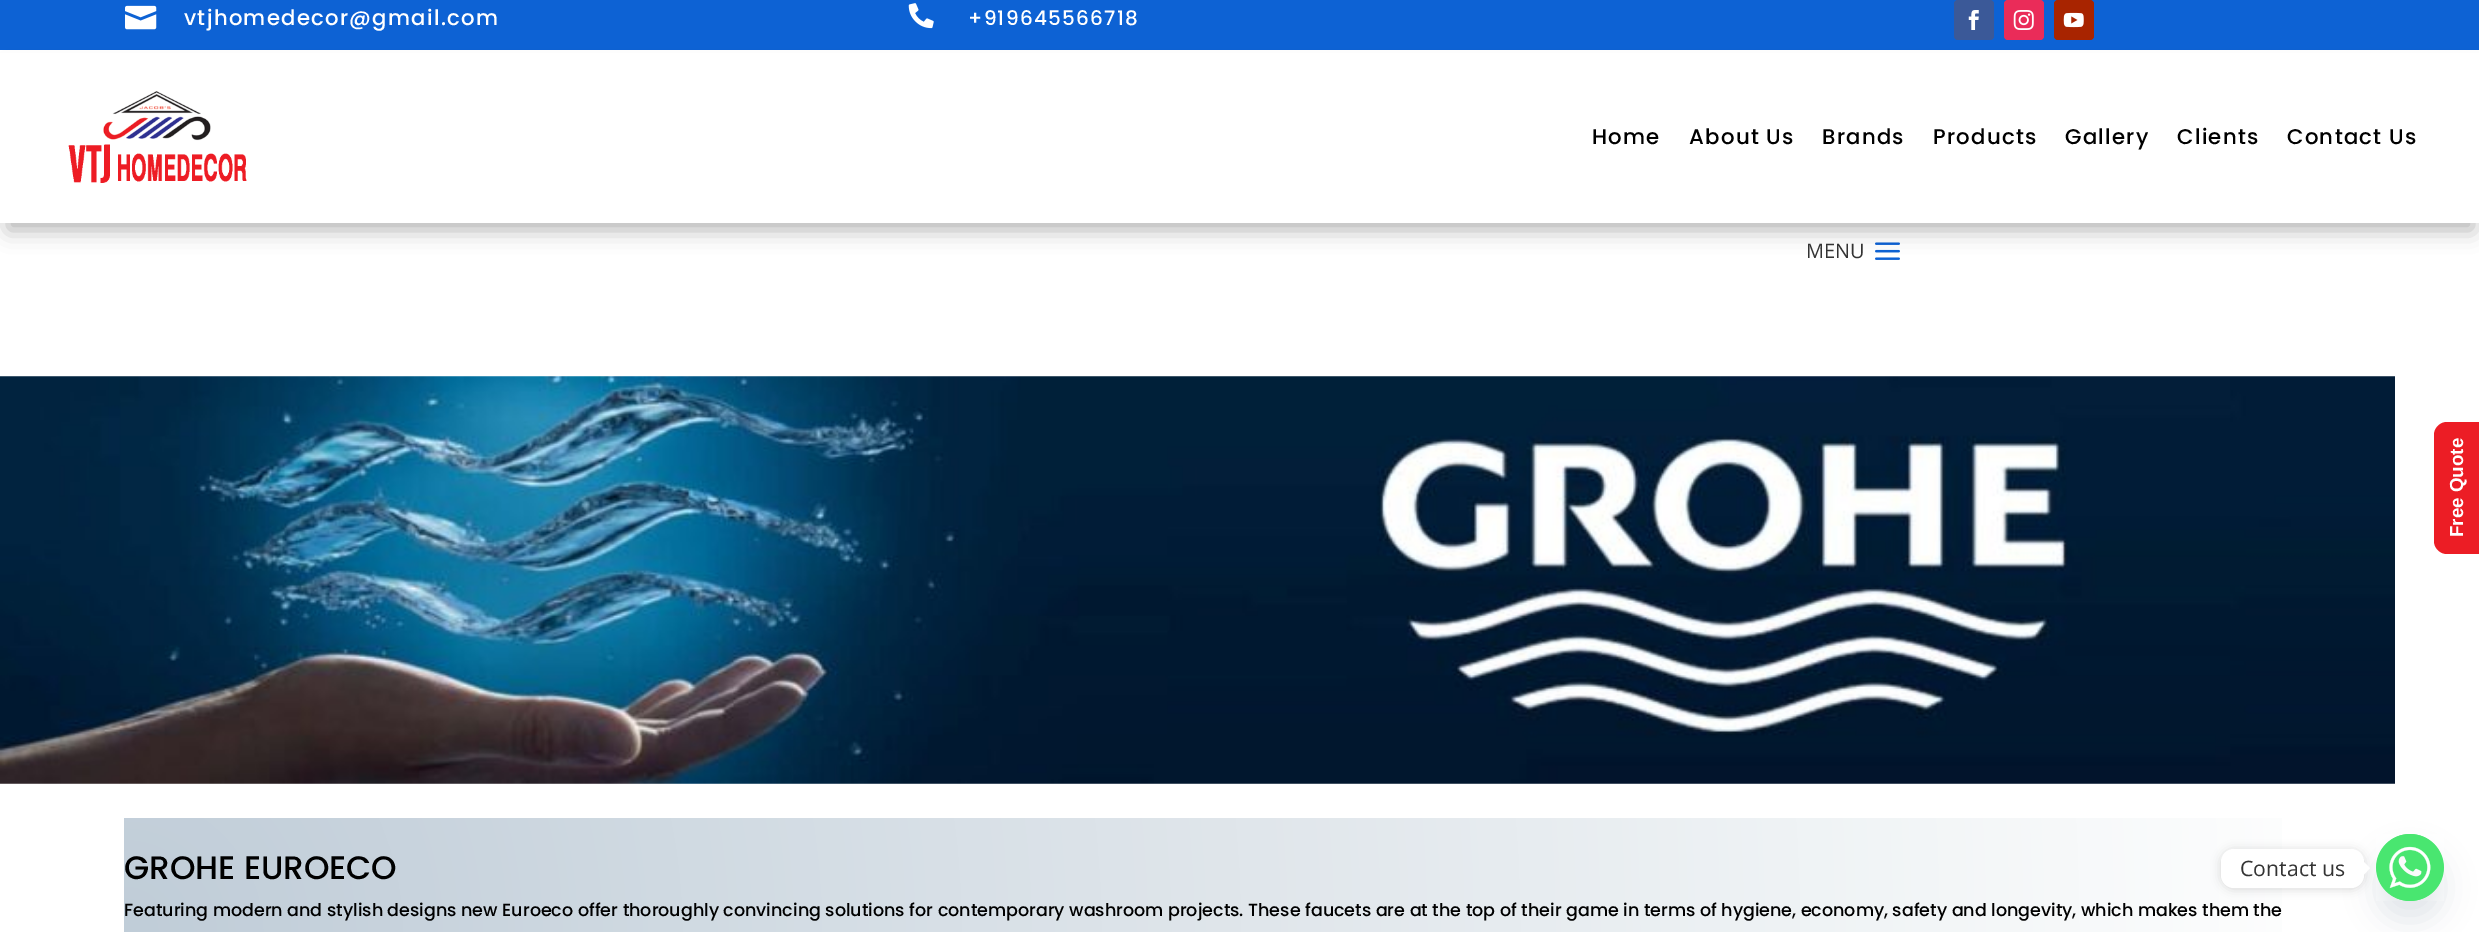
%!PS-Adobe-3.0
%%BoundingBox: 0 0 2479 932
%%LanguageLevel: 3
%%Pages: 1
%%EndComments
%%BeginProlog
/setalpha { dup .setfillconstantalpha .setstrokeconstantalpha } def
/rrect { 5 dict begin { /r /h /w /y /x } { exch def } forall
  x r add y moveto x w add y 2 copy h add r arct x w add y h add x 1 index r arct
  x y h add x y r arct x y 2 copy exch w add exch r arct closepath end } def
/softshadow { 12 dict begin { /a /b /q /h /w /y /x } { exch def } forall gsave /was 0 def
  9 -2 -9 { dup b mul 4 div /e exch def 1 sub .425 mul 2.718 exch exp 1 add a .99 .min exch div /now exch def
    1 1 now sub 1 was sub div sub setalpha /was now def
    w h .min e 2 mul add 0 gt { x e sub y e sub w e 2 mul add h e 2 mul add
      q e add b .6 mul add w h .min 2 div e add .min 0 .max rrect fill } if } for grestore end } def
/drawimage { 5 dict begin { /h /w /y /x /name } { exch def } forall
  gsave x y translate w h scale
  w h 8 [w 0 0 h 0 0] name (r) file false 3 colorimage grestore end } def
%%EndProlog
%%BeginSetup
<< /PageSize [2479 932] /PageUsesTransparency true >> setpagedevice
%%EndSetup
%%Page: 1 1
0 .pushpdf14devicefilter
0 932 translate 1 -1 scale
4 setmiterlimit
1 setgray
0 0 2479 932 rectfill
0.051 0.384 0.831 setrgbcolor
0 0 2479 50 rectfill
(images/1.raw) 125 5 32 25 drawimage
(images/2.raw) 908 3 26 26 drawimage
0.231 0.349 0.596 setrgbcolor
1954 0 40 40 4 rrect fill
(images/3.raw) 1968 10 11 20 drawimage
0.918 0.173 0.349 setrgbcolor
2004 0 40 40 4 rrect fill
(images/4.raw) 2013 10 21 20 drawimage
0.659 0.141 0 setrgbcolor
2054 0 40 40 4 rrect fill
(images/5.raw) 2063 12 21 16 drawimage
(images/7.raw) 1875 242 25 18 drawimage
0 setgray
8 73 2465 157 0 11 0.3 softshadow
1 setgray
0 53 2479 170 rectfill
(images/6.raw) 68 91 179 92 drawimage
(images/8.raw) 0 376 2395 408 drawimage
gsave newpath 124 818 moveto 2282 818 lineto 2282 932 lineto 124 932 lineto closepath clip newpath 124 933 translate 2235 2235 scale
<< /ShadingType 3 /ColorSpace /DeviceRGB /Coords [0 0 0 0 0 1] /Extend [true true] /Function << /FunctionType 2 /Domain [0 1] /C0 [0.753 0.804 0.847] /C1 [1 1 1] /N 1 >> >> shfill grestore
0.925 0.114 0.145 setrgbcolor
newpath 2434 541 moveto 2434 435 lineto 2434 428 2440 422 2447 422 curveto 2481 422 lineto 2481 554 lineto 2447 554 lineto 2440 554 2434 548 2434 541 curveto closepath fill
0.286 0.408 0.494 setrgbcolor
2376 854 68 67 33.5 15 0.16 softshadow
0.286 0.902 0.439 setrgbcolor
2376 834 68 67 33.5 rrect fill
(images/9.raw) 2376 834 68 67 drawimage
0 setgray
2221 850 143 39 13 5 0.15 softshadow
1 setgray
2221 849 143 39 13 rrect fill
newpath 2364 874.5 moveto 2364 862 lineto 2370 868 lineto closepath fill
/Poppins-Medium [21.25 0 0 -21.25 0 0] selectfont
184 25 moveto 1.25 0 (vtjhomedecor@gmail.com) ashow
/Poppins-Medium [20 0 0 -20 0 0] selectfont
968 25 moveto 1.25 0 (+919645566718) ashow
/Poppins-Medium [21.25 0 0 -21.25 0 0] selectfont
0 setgray
1592 144 moveto 1.25 0 (Home) ashow
1689 144 moveto 1.25 0 (About Us) ashow
1822 144 moveto 1.25 0 (Brands) ashow
1933 144 moveto 1.25 0 (Products) ashow
2065 144 moveto 1.25 0 (Gallery) ashow
2177 144 moveto 1.25 0 (Clients) ashow
2287 144 moveto 1.25 0 (Contact Us) ashow
/OpenSans-Regular [20 0 0 -20 0 0] selectfont
0.2 setgray
1806 258 moveto (MENU) show
/Poppins-Medium [32.5 0 0 -32.5 0 0] selectfont
0 setgray
124 879 moveto (GROHE EUROECO) show
/Poppins-Medium [17.5 0 0 -17.5 0 0] selectfont
124 916 moveto (Featuring modern and stylish designs new Euroeco offer thoroughly convincing solutions for contemporary washroom projects. These faucets are at the top of their game in terms of hygiene, economy, safety and longevity, which makes them the) show
/LiberationSans-Bold [18.75 0 0 -18.75 0 0] selectfont
1 setgray
gsave 2463 537 translate -90 rotate 0 0 moveto (Free Quote) show grestore
/OpenSans-Regular [21.25 0 0 -21.25 0 0] selectfont
0.2 setgray
2240 876 moveto (Contact us) show
.poppdf14devicefilter showpage
%%EOF
